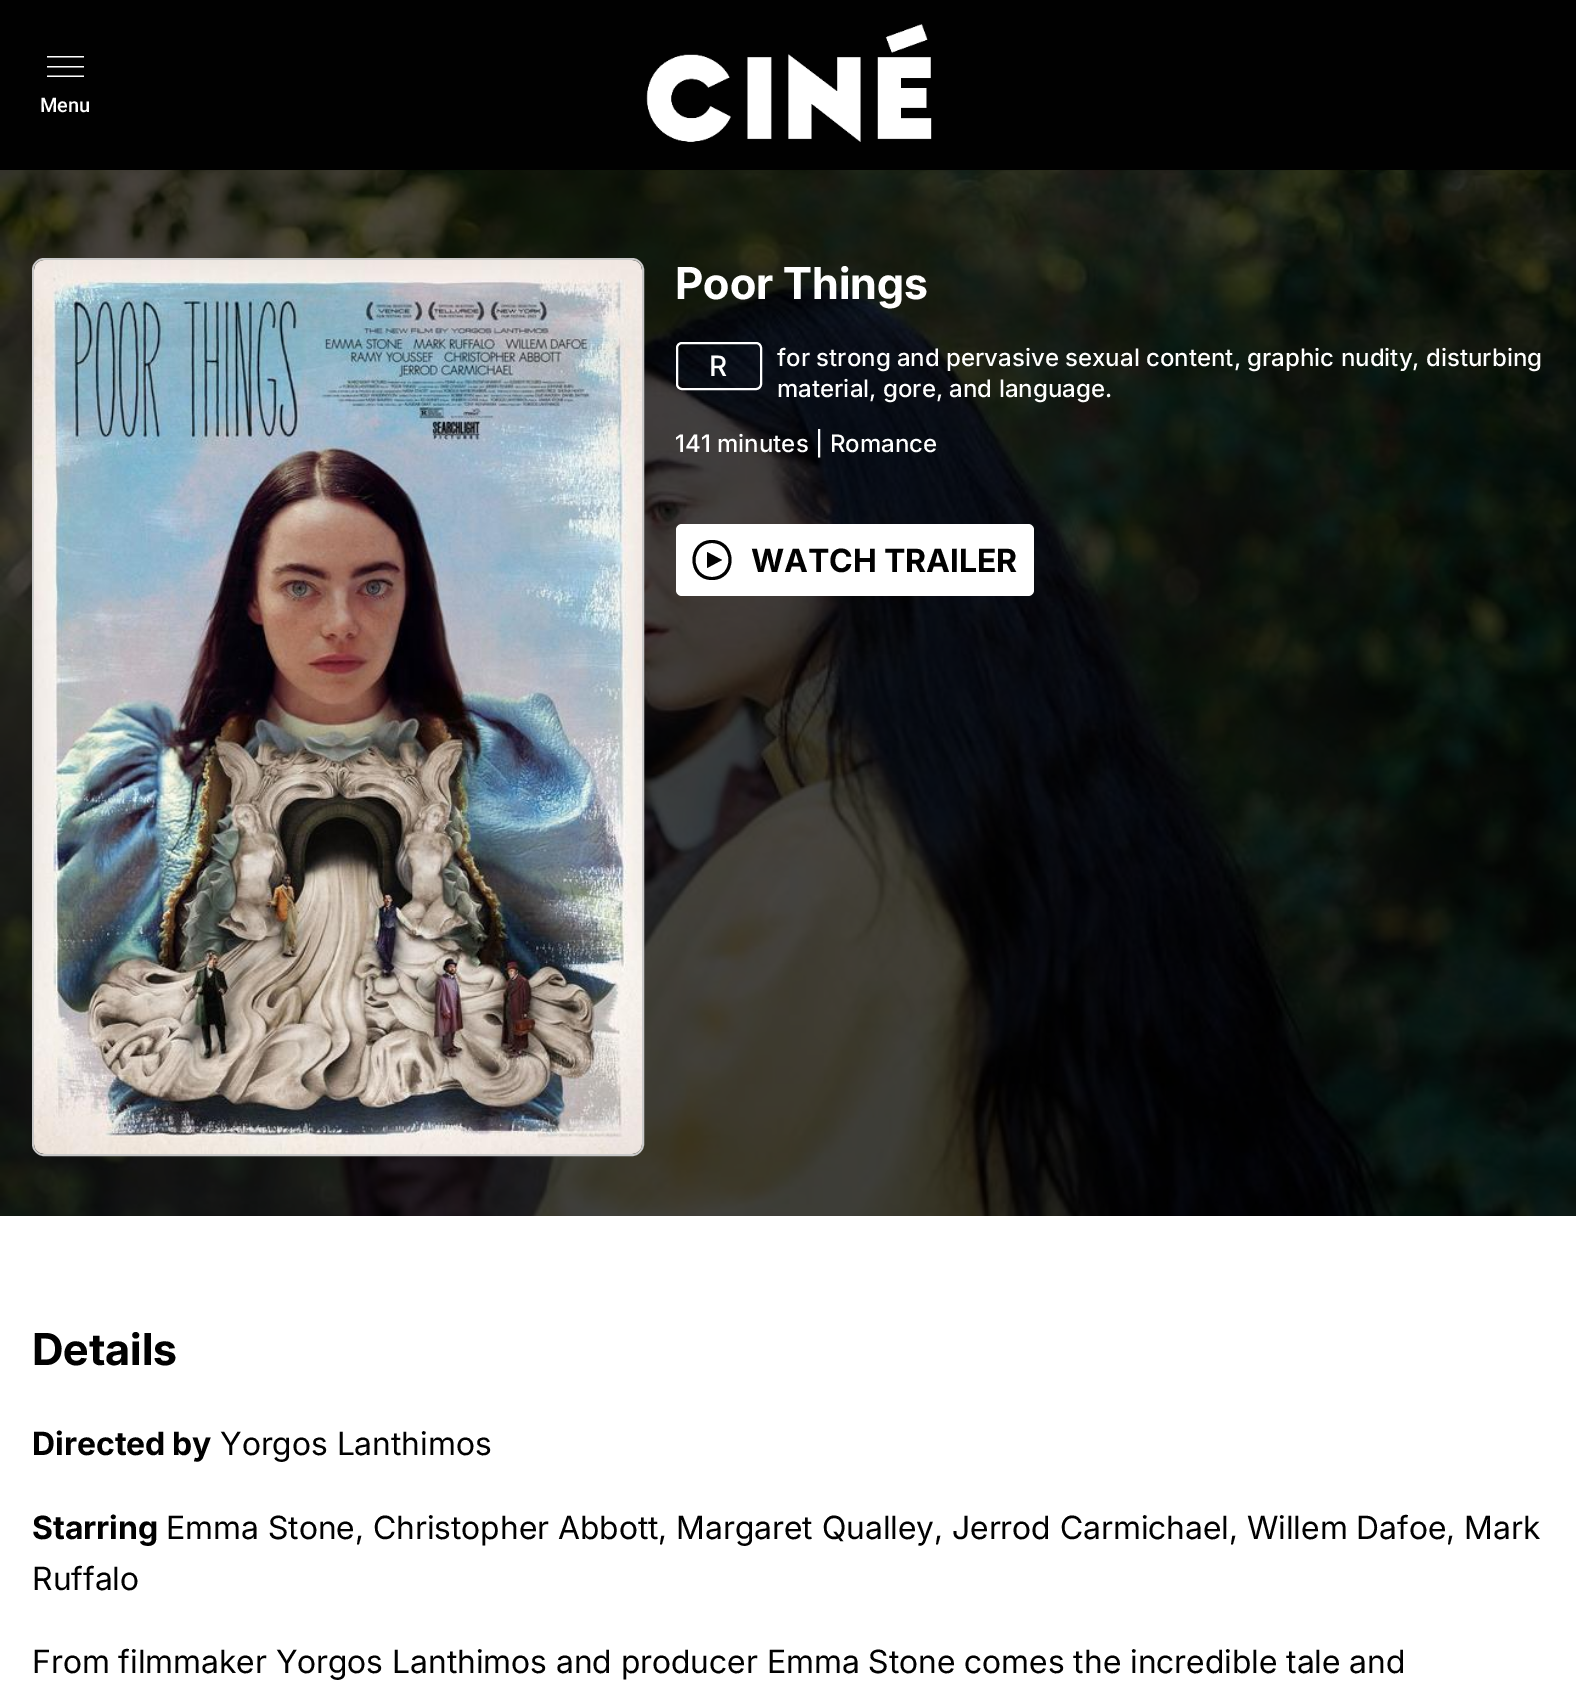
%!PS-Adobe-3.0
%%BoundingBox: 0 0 1576 1683
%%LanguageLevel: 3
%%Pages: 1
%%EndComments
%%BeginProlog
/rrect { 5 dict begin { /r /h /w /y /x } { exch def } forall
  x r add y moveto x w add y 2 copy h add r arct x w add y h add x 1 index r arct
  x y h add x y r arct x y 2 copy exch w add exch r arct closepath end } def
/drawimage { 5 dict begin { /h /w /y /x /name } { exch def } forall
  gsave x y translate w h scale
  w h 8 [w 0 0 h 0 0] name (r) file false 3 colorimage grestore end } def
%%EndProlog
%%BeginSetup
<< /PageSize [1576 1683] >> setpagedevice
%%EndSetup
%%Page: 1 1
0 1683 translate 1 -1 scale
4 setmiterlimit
1 setgray
0 0 1576 1683 rectfill
0.004 setgray
0 0 1576 170 rectfill
1 setgray
newpath 84 77 moveto 47 77 lineto 47 75.5 lineto 84 75.5 lineto closepath 84 67.5 moveto 47 67.5 lineto 47 66 lineto 84 66 lineto closepath 84 57.5 moveto 47 57.5 lineto 47 56 lineto 84 56 lineto closepath eofill
(images/1.raw) 646 24 286 118 drawimage
(images/2.raw) 0 170 1576 1046 drawimage
0.788 setgray
2 setlinewidth
33 259 610 896 11 rrect stroke
(images/3.raw) 34 260 608 894 drawimage
1 setgray
677 343 84 46 5 rrect stroke
676 524 358 72 6 rrect fill
0.004 setgray
newpath 712 543 moveto 734 543 734 577 712 577 curveto 690 577 690 543 712 543 curveto closepath 712 540 moveto 686 540 686 580 712 580 curveto 738 580 738 540 712 540 curveto closepath 707 568 moveto 707 552 lineto 722 560 lineto closepath fill
/Roboto-Medium [20 0 0 -20 0 0] selectfont
1 setgray
40 112 moveto (Menu) show
/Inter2-Bold [44 0 0 -44 0 0] selectfont
675 299 moveto (Poor Things) show
/Inter-Medium [28 0 0 -28 0 0] selectfont
709 376 moveto (R) show
/Inter-Medium [24 0 0 -24 0 0] selectfont
777 366 moveto (for strong and pervasive sexual content, graphic nudity, disturbing) show
777 397 moveto (material, gore, and language.) show
675 452 moveto (141 minutes | Romance) show
/Inter-Bold [32 0 0 -32 0 0] selectfont
0.004 setgray
751 572 moveto -1 0 32 (WATCH TRAILER) widthshow
/Inter2-Bold [44 0 0 -44 0 0] selectfont
32 1365 moveto (Details) show
/Inter-Bold [32 0 0 -32 0 0] selectfont
32 1455 moveto -1 0 32 (Directed by) widthshow
/Inter-Regular [32 0 0 -32 0 0] selectfont
220 1455 moveto (Yorgos Lanthimos) show
/Inter-Bold [32 0 0 -32 0 0] selectfont
32 1539 moveto (Starring) show
/Inter-Regular [32 0 0 -32 0 0] selectfont
166 1539 moveto (Emma Stone, Christopher Abbott, Margaret Qualley, Jerrod Carmichael, Willem Dafoe, Mark) show
32 1590 moveto (Ruffalo) show
32 1673 moveto (From filmmaker Yorgos Lanthimos and producer Emma Stone comes the incredible tale and) show
showpage
%%EOF
